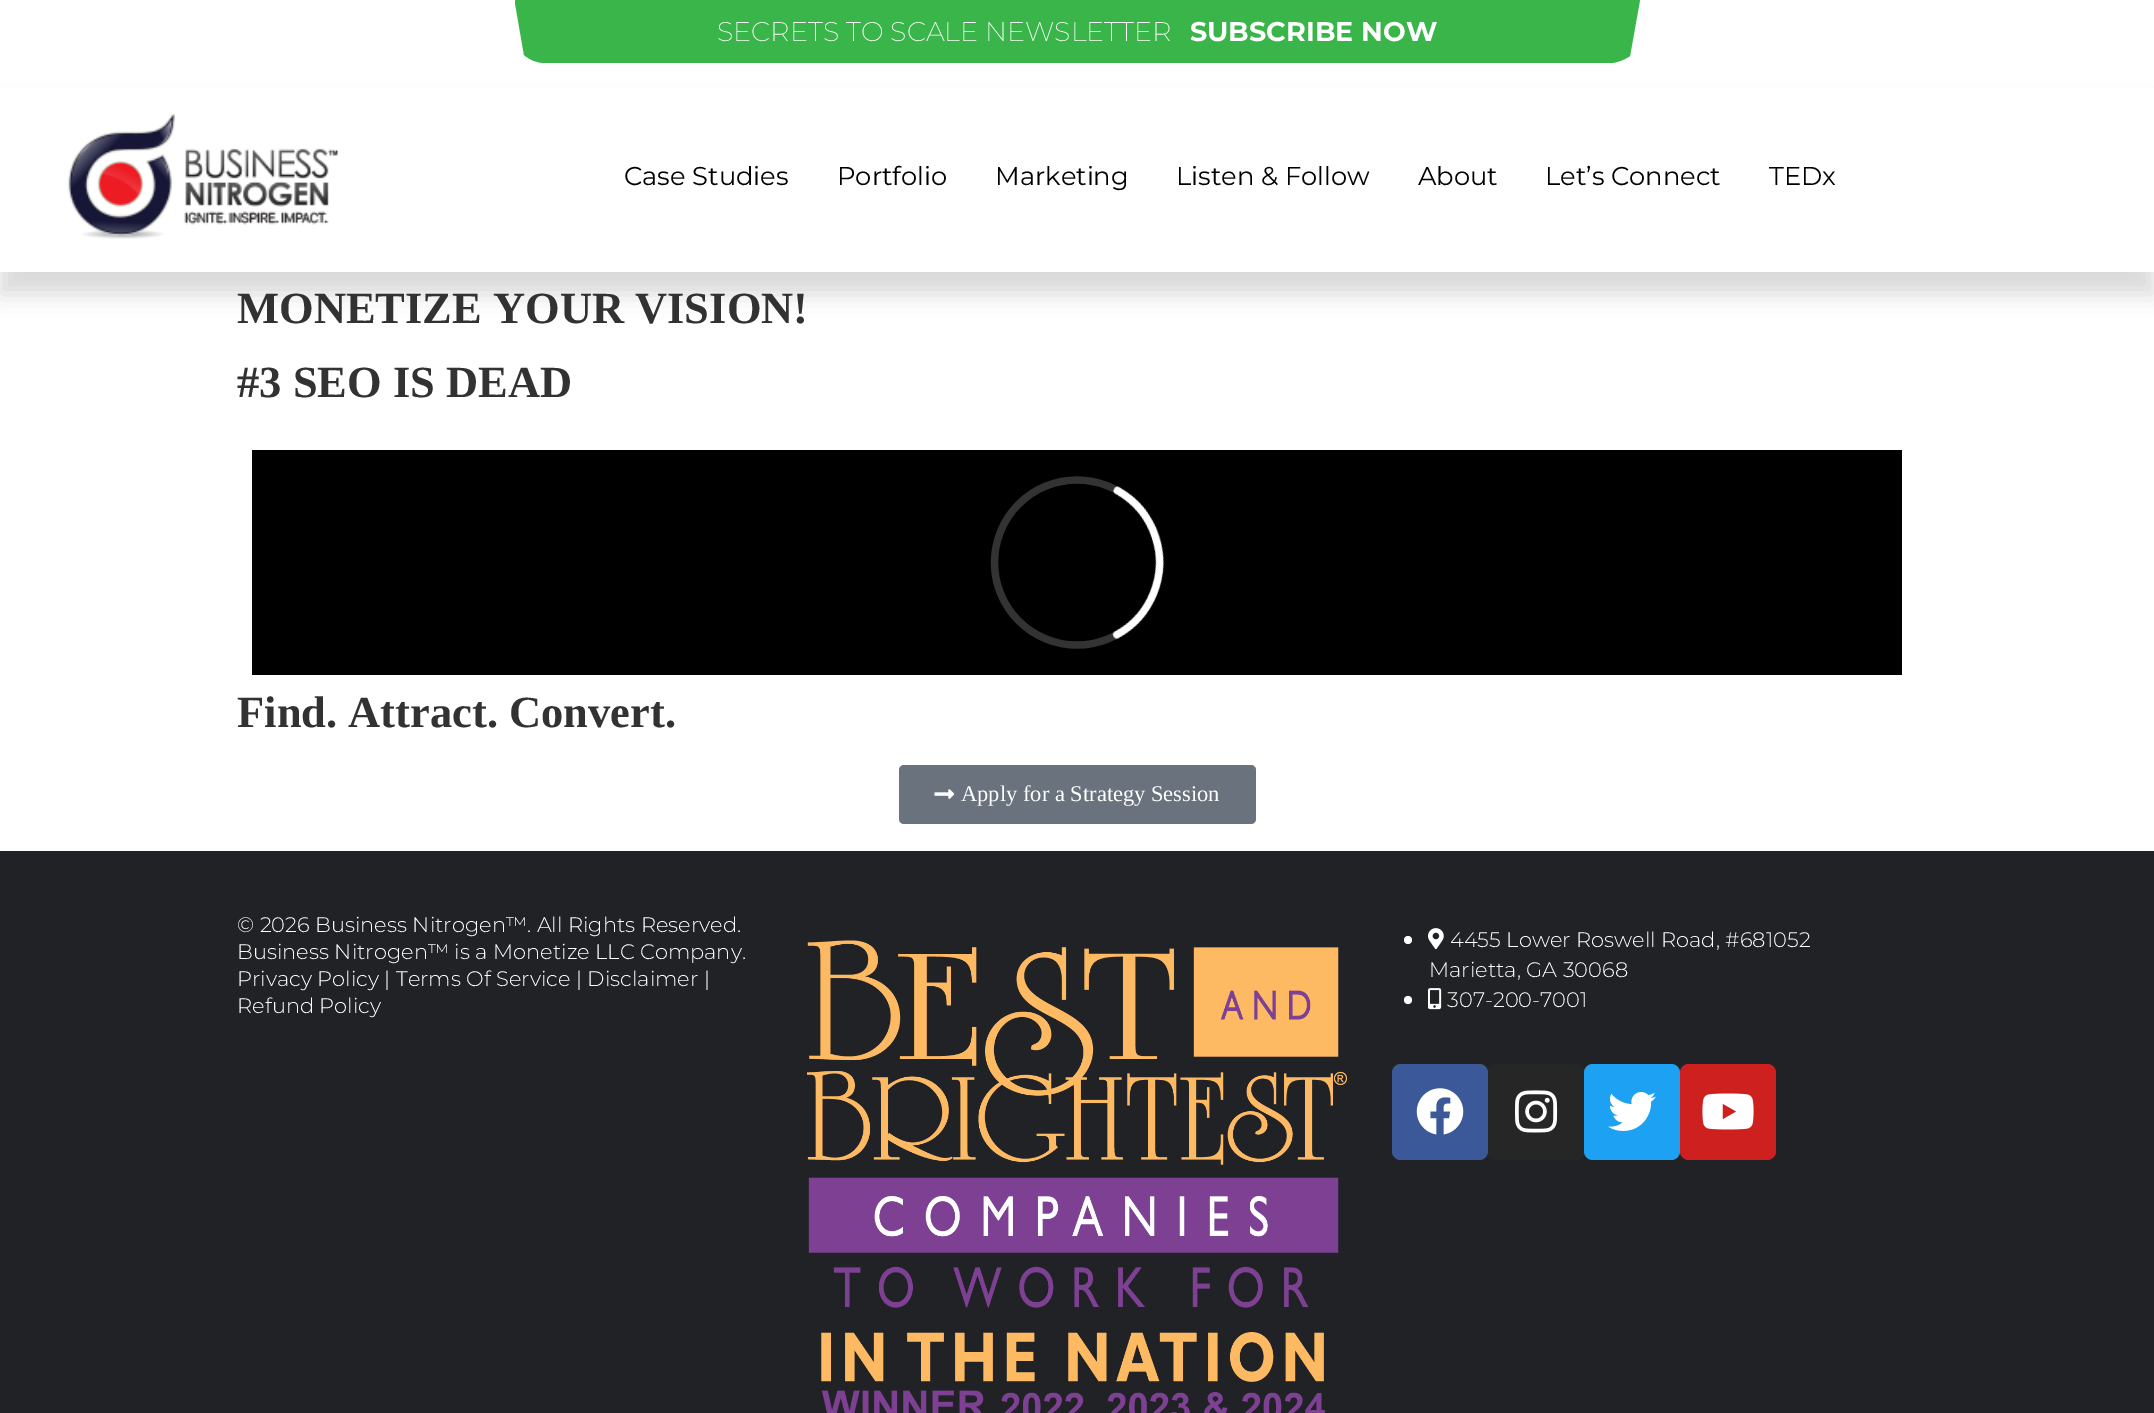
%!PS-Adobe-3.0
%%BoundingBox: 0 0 2154 1413
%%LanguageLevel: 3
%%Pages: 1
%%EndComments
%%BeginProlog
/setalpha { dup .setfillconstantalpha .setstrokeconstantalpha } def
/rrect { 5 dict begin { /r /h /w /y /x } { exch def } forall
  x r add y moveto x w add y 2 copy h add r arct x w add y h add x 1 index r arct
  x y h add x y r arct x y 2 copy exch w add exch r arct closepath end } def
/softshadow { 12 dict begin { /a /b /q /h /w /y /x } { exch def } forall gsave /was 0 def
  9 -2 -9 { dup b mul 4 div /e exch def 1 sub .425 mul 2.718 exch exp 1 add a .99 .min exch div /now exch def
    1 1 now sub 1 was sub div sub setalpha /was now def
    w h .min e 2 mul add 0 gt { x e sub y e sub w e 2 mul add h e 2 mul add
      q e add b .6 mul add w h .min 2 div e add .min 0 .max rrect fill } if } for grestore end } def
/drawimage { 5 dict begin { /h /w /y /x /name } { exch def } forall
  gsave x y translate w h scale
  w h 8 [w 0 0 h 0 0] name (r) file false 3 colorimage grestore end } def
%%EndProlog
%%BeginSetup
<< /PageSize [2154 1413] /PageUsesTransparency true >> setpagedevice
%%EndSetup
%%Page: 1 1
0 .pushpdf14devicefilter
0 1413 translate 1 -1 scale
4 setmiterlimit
1 setgray
0 0 2154 1413 rectfill
0.224 0.71 0.29 setrgbcolor
newpath 515 0 moveto 1640 0 lineto 1630 56 lineto 1624 60 1617 63 1610 63 curveto 545 63 lineto 537 63 530 60 524 55 curveto 515 3 lineto closepath fill
0 setgray
0 104 2154 190 0 11 0.15 softshadow
1 setgray
0 88 2154 184 rectfill
(images/1.raw) 67 114 271 125 drawimage
0 setgray
252 450 1650 225 rectfill
(images/2.raw) 990 476 175 173 drawimage
0.412 0.447 0.49 setrgbcolor
899 765 357 59 5 rrect fill
(images/3.raw) 934 789 21 10 drawimage
0.125 0.133 0.149 setrgbcolor
0 851 2154 562 rectfill
(images/4.raw) 807 940 540 473 drawimage
1 setgray
newpath 1408 940 4 0 360 arc closepath fill
(images/5.raw) 1428 928 16 22 drawimage
newpath 1408 1000 4 0 360 arc closepath fill
(images/6.raw) 1428 988 14 22 drawimage
0.231 0.349 0.596 setrgbcolor
1392 1064 96 96 9 rrect fill
(images/7.raw) 1416 1088 48 47 drawimage
0.149 setgray
1488 1064 96 96 9 rrect fill
(images/8.raw) 1515 1090 43 43 drawimage
0.114 0.631 0.949 setrgbcolor
1584 1064 96 96 9 rrect fill
(images/9.raw) 1608 1092 48 39 drawimage
0.804 0.125 0.122 setrgbcolor
1680 1064 96 96 9 rrect fill
(images/10.raw) 1702 1093 52 37 drawimage
/Montserrat-ExtraLight [27 0 0 -27 0 0] selectfont
1 setgray
717 41 moveto (SECRETS TO SCALE NEWSLETTER) show
/Montserrat-Bold [27 0 0 -27 0 0] selectfont
1190 41 moveto (SUBSCRIBE NOW) show
/Montserrat-Regular [25.75 0 0 -25.75 0 0] selectfont
0 setgray
624 185 moveto (Case Studies) show
837 185 moveto (Portfolio) show
995 185 moveto (Marketing) show
1176 185 moveto (Listen & Follow) show
1418 185 moveto (About) show
1545 185 moveto (Let’s Connect) show
1769 185 moveto (TEDx) show
/LiberationSerif-Bold [44.5 0 0 -44.5 0 0] selectfont
0.196 setgray
237 323 moveto (MONETIZE YOUR VISION!) show
237 397 moveto (#3 SEO IS DEAD) show
237 727 moveto (Find. Attract. Convert.) show
/LiberationSerif-Regular [22.5 0 0 -22.5 0 0] selectfont
1 setgray
961 801 moveto (Apply for a Strategy Session) show
/Montserrat-Light [21 0 0 -21 0 0] selectfont
237 932 moveto (© 2026 Business Nitrogen™. All Rights Reserved.) show
237 959 moveto (Business Nitrogen™ is a Monetize LLC Company.) show
237 986 moveto (Privacy Policy | Terms Of Service | Disclaimer |) show
237 1013 moveto (Refund Policy) show
1450 947 moveto (4455 Lower Roswell Road, #681052) show
1429 977 moveto (Marietta, GA 30068) show
1447 1007 moveto (307-200-7001) show
.poppdf14devicefilter showpage
%%EOF
